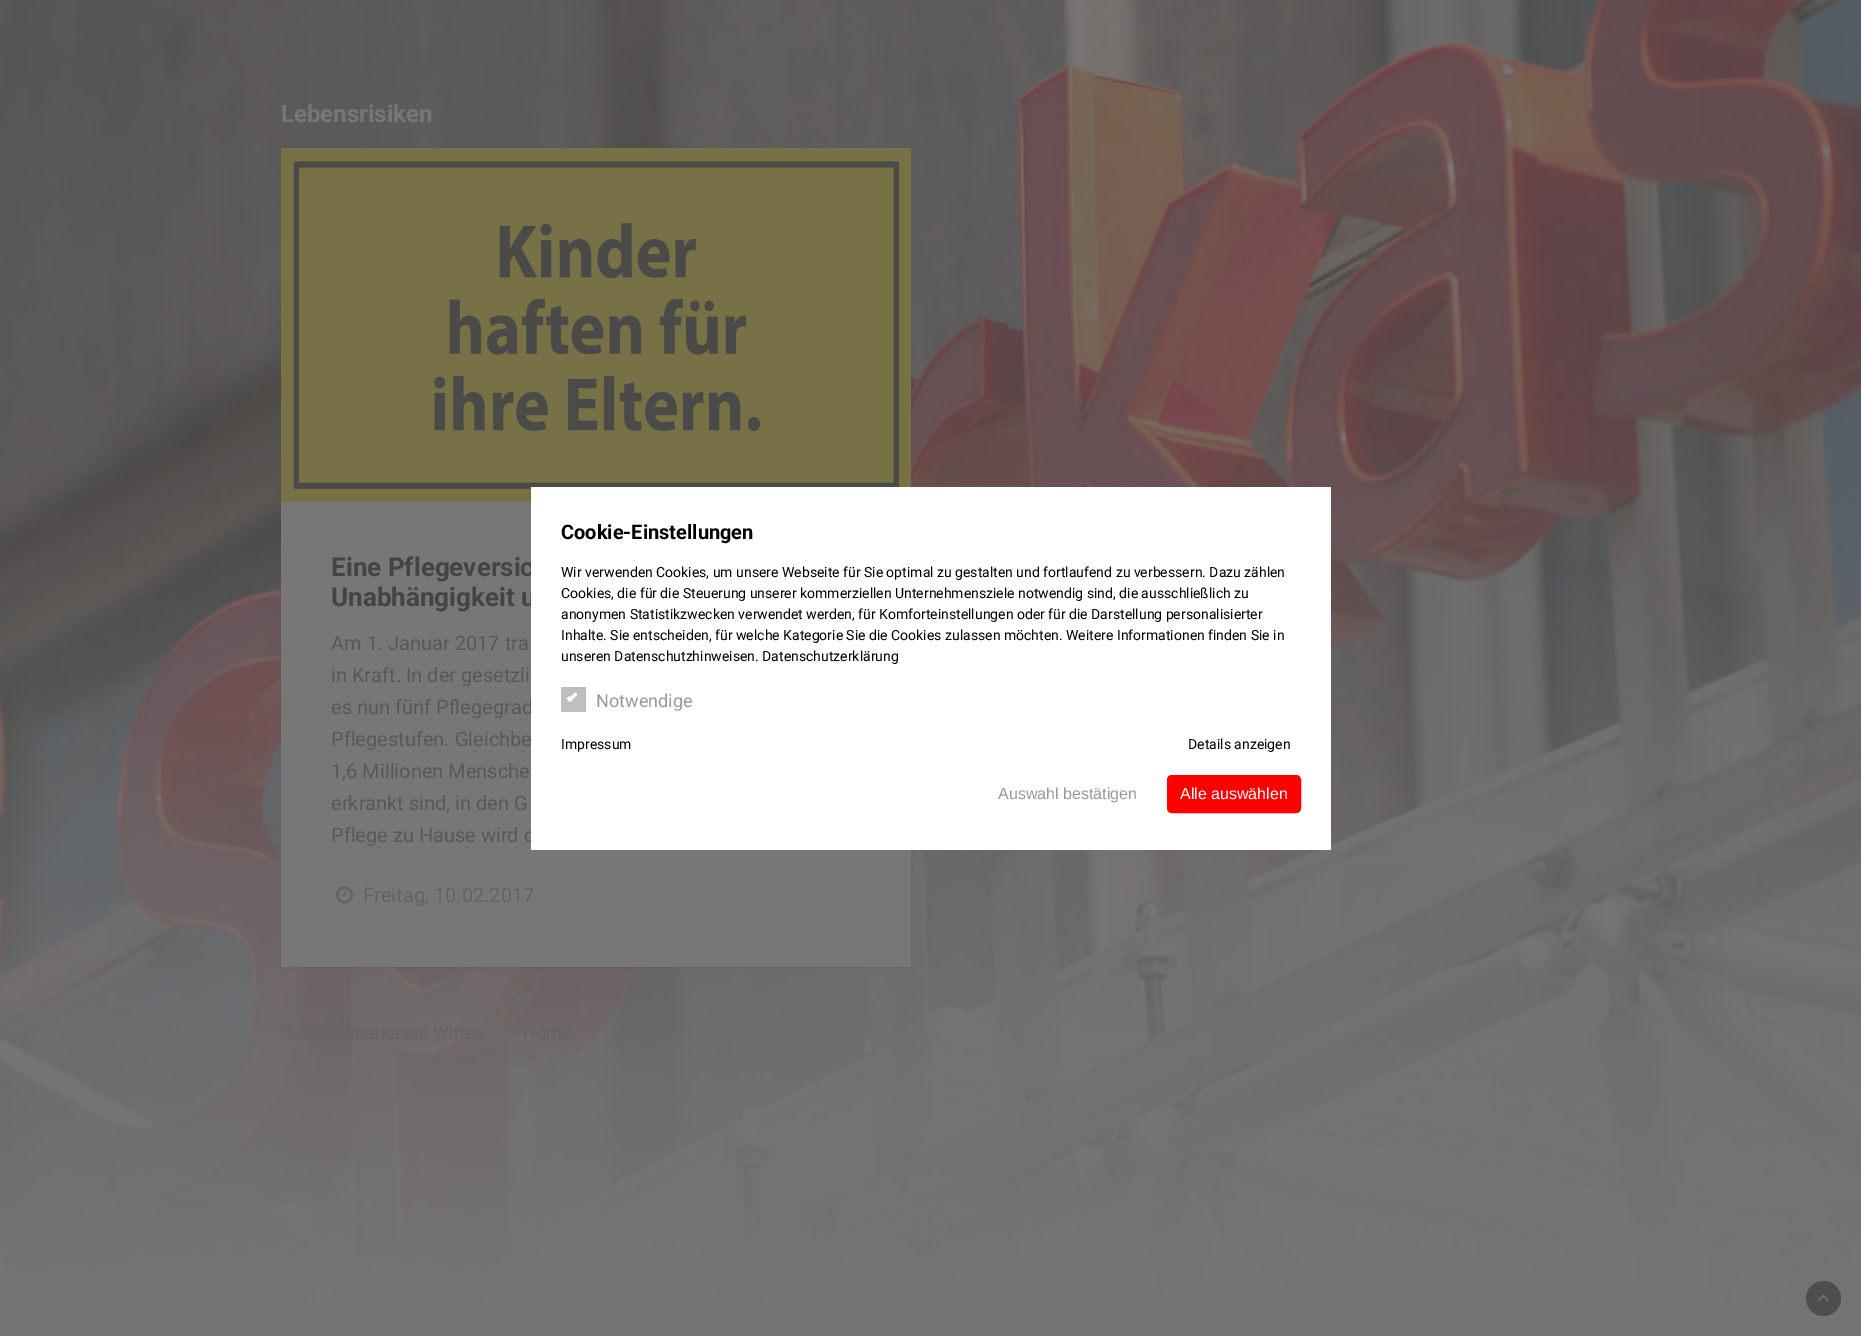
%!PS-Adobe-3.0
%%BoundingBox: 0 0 1861 1336
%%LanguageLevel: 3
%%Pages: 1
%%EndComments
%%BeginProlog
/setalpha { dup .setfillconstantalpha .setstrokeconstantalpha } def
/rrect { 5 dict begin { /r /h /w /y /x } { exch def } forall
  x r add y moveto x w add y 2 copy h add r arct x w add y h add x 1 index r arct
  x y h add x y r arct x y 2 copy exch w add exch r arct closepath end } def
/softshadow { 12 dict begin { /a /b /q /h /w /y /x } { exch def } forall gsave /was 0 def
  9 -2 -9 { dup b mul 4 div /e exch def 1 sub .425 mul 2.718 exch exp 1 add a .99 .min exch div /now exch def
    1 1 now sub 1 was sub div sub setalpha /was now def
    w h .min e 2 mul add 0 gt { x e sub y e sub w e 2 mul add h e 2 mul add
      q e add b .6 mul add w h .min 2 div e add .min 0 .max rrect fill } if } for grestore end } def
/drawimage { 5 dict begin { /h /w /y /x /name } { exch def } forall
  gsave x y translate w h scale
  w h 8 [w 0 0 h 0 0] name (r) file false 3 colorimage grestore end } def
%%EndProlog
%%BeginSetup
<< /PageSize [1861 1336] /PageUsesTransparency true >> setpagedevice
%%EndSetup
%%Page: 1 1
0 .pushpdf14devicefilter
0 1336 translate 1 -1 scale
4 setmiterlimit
0.455 setgray
0 0 1861 1336 rectfill
(images/1.raw) 0 0 1861 1307 drawimage
0.267 setgray
281 148 630 819 0 2.5 0.25 softshadow
0.467 setgray
281 502 630 465 rectfill
(images/2.raw) 281 148 630 354 drawimage
0.455 setgray
331 871 530 2 rectfill
(images/3.raw) 336 886 18 18 drawimage
0.306 setgray
newpath 1823.5 1298.5 17.5 0 360 arc closepath fill
(images/4.raw) 1817 1294 12 8 drawimage
/Roboto-Bold [24 0 0 -24 0 0] selectfont
0.467 setgray
281 122 moveto (Lebensrisiken) show
/Roboto-Bold [26 0 0 -26 0 0] selectfont
0.267 setgray
331 576 moveto (Eine Pflegeversic) show
331 606 moveto (Unabhängigkeit u) show
/Roboto-Regular [20 0 0 -20 0 0] selectfont
0.345 setgray
331 650 moveto (Am 1. Januar 2017 tra) show
331 682 moveto (in Kraft. In der gesetzli) show
331 714 moveto (es nun fünf Pflegegrad) show
331 746 moveto (Pflegestufen. Gleichbe) show
331 778 moveto (1,6 Millionen Mensche) show
331 810 moveto (erkrankt sind, in den G) show
331 842 moveto (Pflege zu Hause wird d) show
0.388 setgray
363 902 moveto (Freitag, 10.02.2017) show
1 setgray
531 487 800 363 rectfill
/Roboto-Bold [20 0 0 -20 0 0] selectfont
0 setgray
561 539 moveto (Cookie-Einstellungen) show
/Roboto-Regular [14 0 0 -14 0 0] selectfont
561 577 moveto (Wir verwenden Cookies, um unsere Webseite für Sie optimal zu gestalten und fortlaufend zu verbessern. Dazu zählen) show
561 598 moveto (Cookies, die für die Steuerung unserer kommerziellen Unternehmensziele notwendig sind, die ausschließlich zu) show
561 619 moveto (anonymen Statistikzwecken verwendet werden, für Komforteinstellungen oder für die Darstellung personalisierter) show
561 640 moveto (Inhalte. Sie entscheiden, für welche Kategorie Sie die Cookies zulassen möchten. Weitere Informationen finden Sie in) show
561 661 moveto (unseren Datenschutzhinweisen. Datenschutzerklärung) show
0.749 setgray
561 687 25 25 rectfill
1 setgray
newpath 575 692.5 moveto 577.5 694.5 lineto 570 702 lineto 568 699.5 lineto closepath fill
newpath 569 696 moveto 572.5 699.5 lineto 570 702 lineto 566.5 698.5 lineto closepath fill
/Roboto-Regular [18 0 0 -18 0 0] selectfont
0.6 setgray
596 707 moveto (Notwendige) show
/Roboto-Regular [14 0 0 -14 0 0] selectfont
0 setgray
561 749 moveto (Impressum) show
1188 749 moveto (Details anzeigen) show
/LiberationSans-Regular [16 0 0 -16 0 0] selectfont
0.6 setgray
998 799 moveto (Auswahl bestätigen) show
1 0 0 setrgbcolor
1168.5 776.5 131 35 3.5 rrect gsave fill grestore
3 setlinewidth
stroke
1 setgray
1180 799 moveto (Alle auswählen) show
/Roboto-Regular [18 0 0 -18 0 0] selectfont
0.388 setgray
281 1039 moveto (© 2025 Sparkasse Witten) show
523 1039 moveto (Home) show
.poppdf14devicefilter showpage
%%EOF
